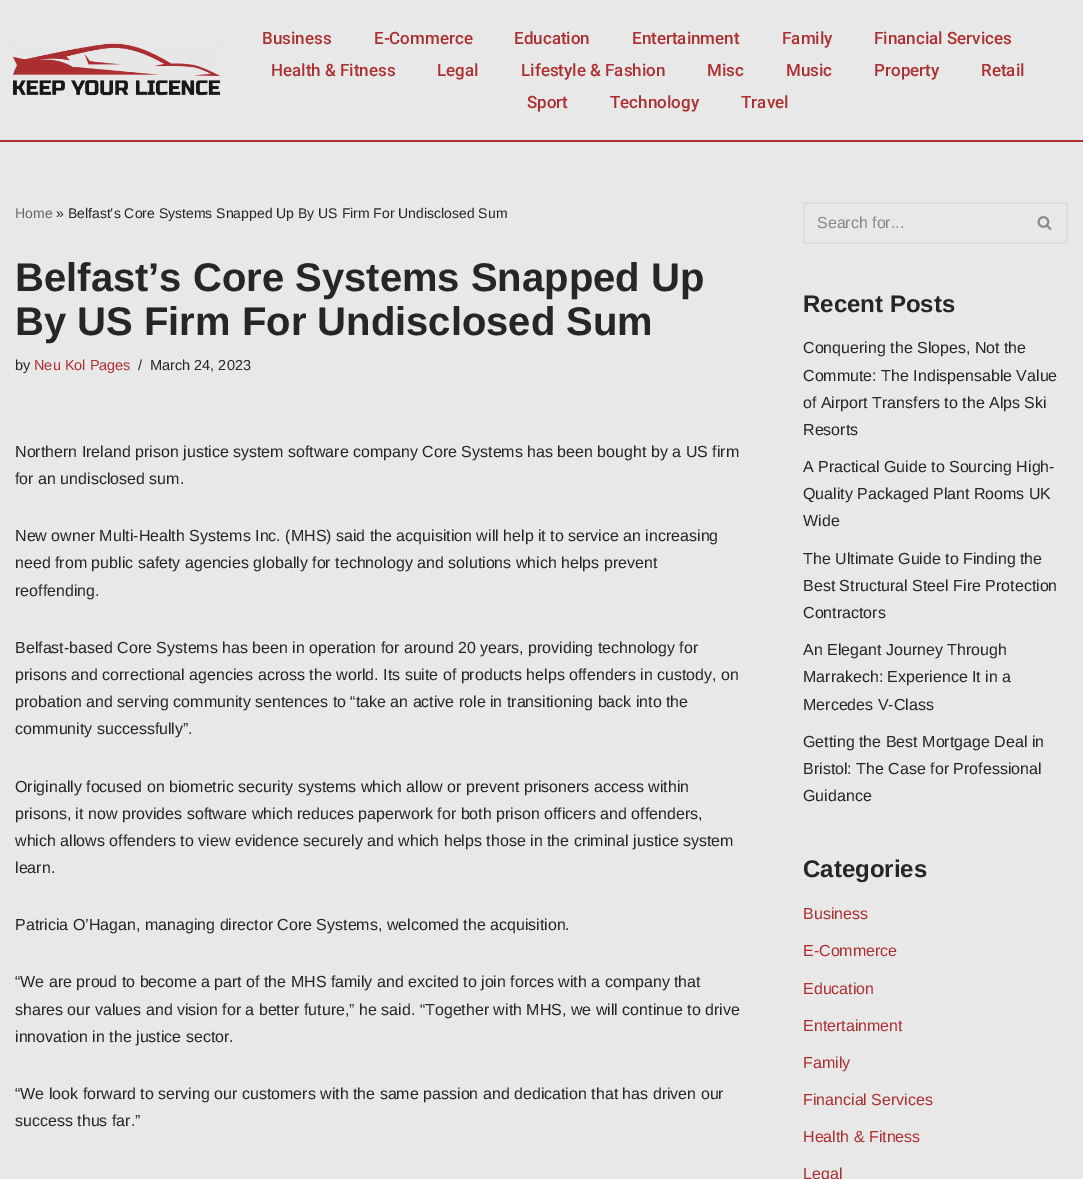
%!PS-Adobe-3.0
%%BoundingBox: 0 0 1083 1179
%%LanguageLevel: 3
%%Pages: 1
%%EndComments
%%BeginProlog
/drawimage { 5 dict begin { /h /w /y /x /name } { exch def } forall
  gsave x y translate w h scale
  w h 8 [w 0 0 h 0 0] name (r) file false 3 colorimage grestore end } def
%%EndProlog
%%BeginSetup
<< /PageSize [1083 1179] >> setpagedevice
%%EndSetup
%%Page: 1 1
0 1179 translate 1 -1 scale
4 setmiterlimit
0.91 setgray
0 0 1083 1179 rectfill
0.675 0.184 0.192 setrgbcolor
0 140 1083 2 rectfill
(images/1.raw) 12 43 209 53 drawimage
0.867 setgray
newpath 806 202 moveto 1023 202 lineto 1023 244 lineto 806 244 lineto 804 244 803 243 803 241 curveto 803 205 lineto 803 203 804 202 806 202 curveto closepath 806 204 moveto 1023 204 lineto 1023 242 lineto 806 242 lineto 805 242 lineto 805 205 lineto closepath eofill
newpath 1023 202 moveto 1065 202 lineto 1067 202 1068 203 1068 205 curveto 1068 241 lineto 1068 243 1067 244 1065 244 curveto 1023 244 lineto closepath 1023 204 moveto 1065 204 lineto 1066 204 1066 204 1066 205 curveto 1066 241 lineto 1066 242 1066 242 1065 242 curveto 1023 242 lineto closepath eofill
(images/2.raw) 1037 216 15 14 drawimage
/Roboto-Medium [17 0 0 -17 0 0] selectfont
0.675 0.184 0.192 setrgbcolor
262 44 moveto (Business) show
374 44 moveto (E-Commerce) show
514 44 moveto (Education) show
632 44 moveto (Entertainment) show
782 44 moveto (Family) show
874 44 moveto (Financial Services) show
271 76 moveto (Health & Fitness) show
437 76 moveto (Legal) show
521 76 moveto (Lifestyle & Fashion) show
707 76 moveto (Misc) show
786 76 moveto (Music) show
874 76 moveto (Property) show
981 76 moveto (Retail) show
527 108 moveto (Sport) show
610 108 moveto (Technology) show
741 108 moveto (Travel) show
/LiberationSans-Regular [14 0 0 -14 0 0] selectfont
0.404 setgray
15 218 moveto (Home) show
0.153 0.149 0.149 setrgbcolor
56 218 moveto (» Belfast’s Core Systems Snapped Up By US Firm For Undisclosed Sum) show
/LiberationSans-Bold [40 0 0 -40 0 0] selectfont
15 291 moveto (Belfast’s Core Systems Snapped Up) show
15 335 moveto (By US Firm For Undisclosed Sum) show
/LiberationSans-Regular [14.5 0 0 -14.5 0 0] selectfont
15 370 moveto (by) show
0.675 0.184 0.192 setrgbcolor
34 370 moveto (Neu Kol Pages) show
0.153 0.149 0.149 setrgbcolor
138 370 moveto (/) show
150 370 moveto (March 24, 2023) show
/LiberationSans-Regular [16 0 0 -16 0 0] selectfont
15 457 moveto (Northern Ireland prison justice system software company Core Systems has been bought by a US firm) show
15 484 moveto (for an undisclosed sum.) show
15 541 moveto (New owner Multi-Health Systems Inc. \(MHS\) said the acquisition will help it to service an increasing) show
15 568 moveto (need from public safety agencies globally for technology and solutions which helps prevent) show
15 596 moveto (reoffending.) show
15 653 moveto (Belfast-based Core Systems has been in operation for around 20 years, providing technology for) show
15 680 moveto (prisons and correctional agencies across the world. Its suite of products helps offenders in custody, on) show
15 707 moveto (probation and serving community sentences to “take an active role in transitioning back into the) show
15 734 moveto (community successfully”.) show
15 792 moveto (Originally focused on biometric security systems which allow or prevent prisoners access within) show
15 819 moveto (prisons, it now provides software which reduces paperwork for both prison officers and offenders,) show
15 846 moveto (which allows offenders to view evidence securely and which helps those in the criminal justice system) show
15 873 moveto (learn.) show
15 930 moveto (Patricia O’Hagan, managing director Core Systems, welcomed the acquisition.) show
15 987 moveto (“We are proud to become a part of the MHS family and excited to join forces with a company that) show
15 1015 moveto (shares our values and vision for a better future,” he said. “Together with MHS, we will continue to drive) show
15 1042 moveto (innovation in the justice sector.) show
15 1099 moveto (“We look forward to serving our customers with the same passion and dedication that has driven our) show
15 1126 moveto (success thus far.”) show
0.533 0.529 0.529 setrgbcolor
817 228 moveto (Search for...) show
/LiberationSans-Bold [24 0 0 -24 0 0] selectfont
0.153 0.149 0.149 setrgbcolor
803 312 moveto (Recent Posts) show
/LiberationSans-Regular [16 0 0 -16 0 0] selectfont
803 353 moveto (Conquering the Slopes, Not the) show
803 381 moveto (Commute: The Indispensable Value) show
803 408 moveto (of Airport Transfers to the Alps Ski) show
803 435 moveto (Resorts) show
803 472 moveto (A Practical Guide to Sourcing High-) show
803 499 moveto (Quality Packaged Plant Rooms UK) show
803 526 moveto (Wide) show
803 564 moveto (The Ultimate Guide to Finding the) show
803 591 moveto (Best Structural Steel Fire Protection) show
803 618 moveto (Contractors) show
803 655 moveto (An Elegant Journey Through) show
803 682 moveto (Marrakech: Experience It in a) show
803 710 moveto (Mercedes V-Class) show
803 747 moveto (Getting the Best Mortgage Deal in) show
803 774 moveto (Bristol: The Case for Professional) show
803 801 moveto (Guidance) show
/LiberationSans-Bold [24 0 0 -24 0 0] selectfont
803 877 moveto (Categories) show
/LiberationSans-Regular [16 0 0 -16 0 0] selectfont
0.675 0.184 0.192 setrgbcolor
803 919 moveto (Business) show
803 956 moveto (E-Commerce) show
803 994 moveto (Education) show
803 1031 moveto (Entertainment) show
803 1068 moveto (Family) show
803 1105 moveto (Financial Services) show
803 1142 moveto (Health & Fitness) show
803 1179 moveto (Legal) show
showpage
%%EOF
